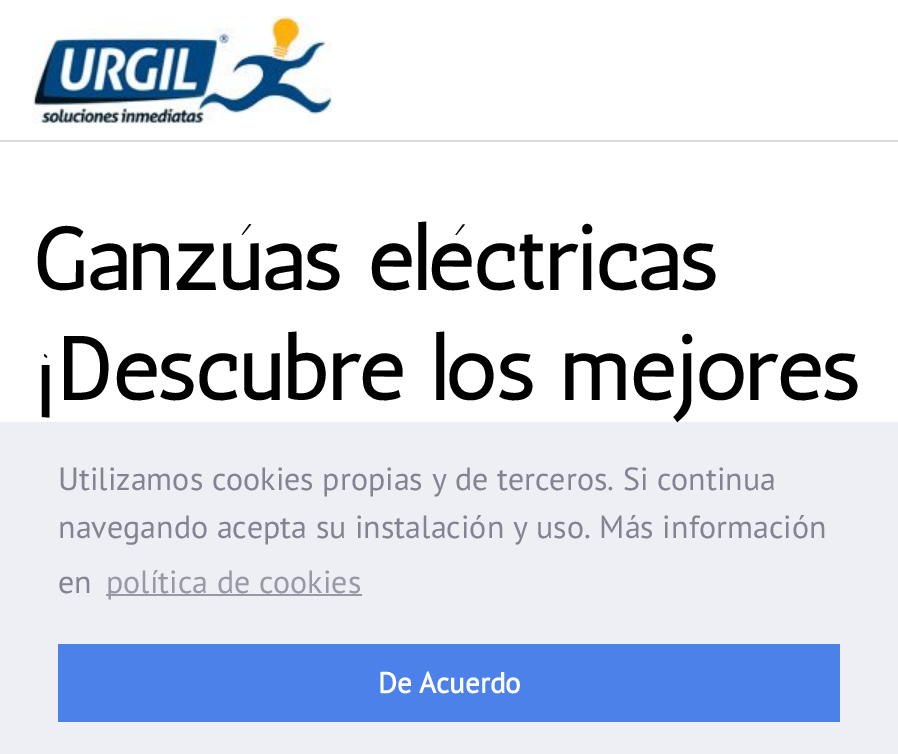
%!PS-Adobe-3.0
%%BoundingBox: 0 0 898 754
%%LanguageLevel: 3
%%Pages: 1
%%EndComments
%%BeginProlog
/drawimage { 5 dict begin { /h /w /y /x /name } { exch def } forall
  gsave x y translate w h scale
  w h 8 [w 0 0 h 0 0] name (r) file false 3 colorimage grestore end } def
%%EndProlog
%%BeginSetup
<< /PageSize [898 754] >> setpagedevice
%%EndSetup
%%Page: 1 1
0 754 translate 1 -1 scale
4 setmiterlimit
1 setgray
0 0 898 754 rectfill
0.859 setgray
0 140 898 2 rectfill
(images/1.raw) 32 16 300 108 drawimage
0.929 0.937 0.961 setrgbcolor
0 422 898 332 rectfill
0.596 0.6 0.647 setrgbcolor
106 594 256 2 rectfill
0.294 0.506 0.91 setrgbcolor
58 644 782 78 rectfill
/Antic-Bold [88 0 0 -88 0 0] selectfont
0 setgray
32 290 moveto (Ganzúas eléctricas) show
32 400 moveto (¡Descubre los mejores) show
/PTSans-Regular [32 0 0 -32 0 0] selectfont
0.514 0.514 0.569 setrgbcolor
58 490 moveto (Utilizamos cookies propias y de terceros. Si continua) show
58 538 moveto (navegando acepta su instalación y uso. Más información) show
58 593 moveto (en) show
0.596 0.6 0.647 setrgbcolor
106 593 moveto (política de cookies) show
/PTSans-Bold [29 0 0 -29 0 0] selectfont
1 setgray
378 693 moveto (De Acuerdo) show
showpage
%%EOF
